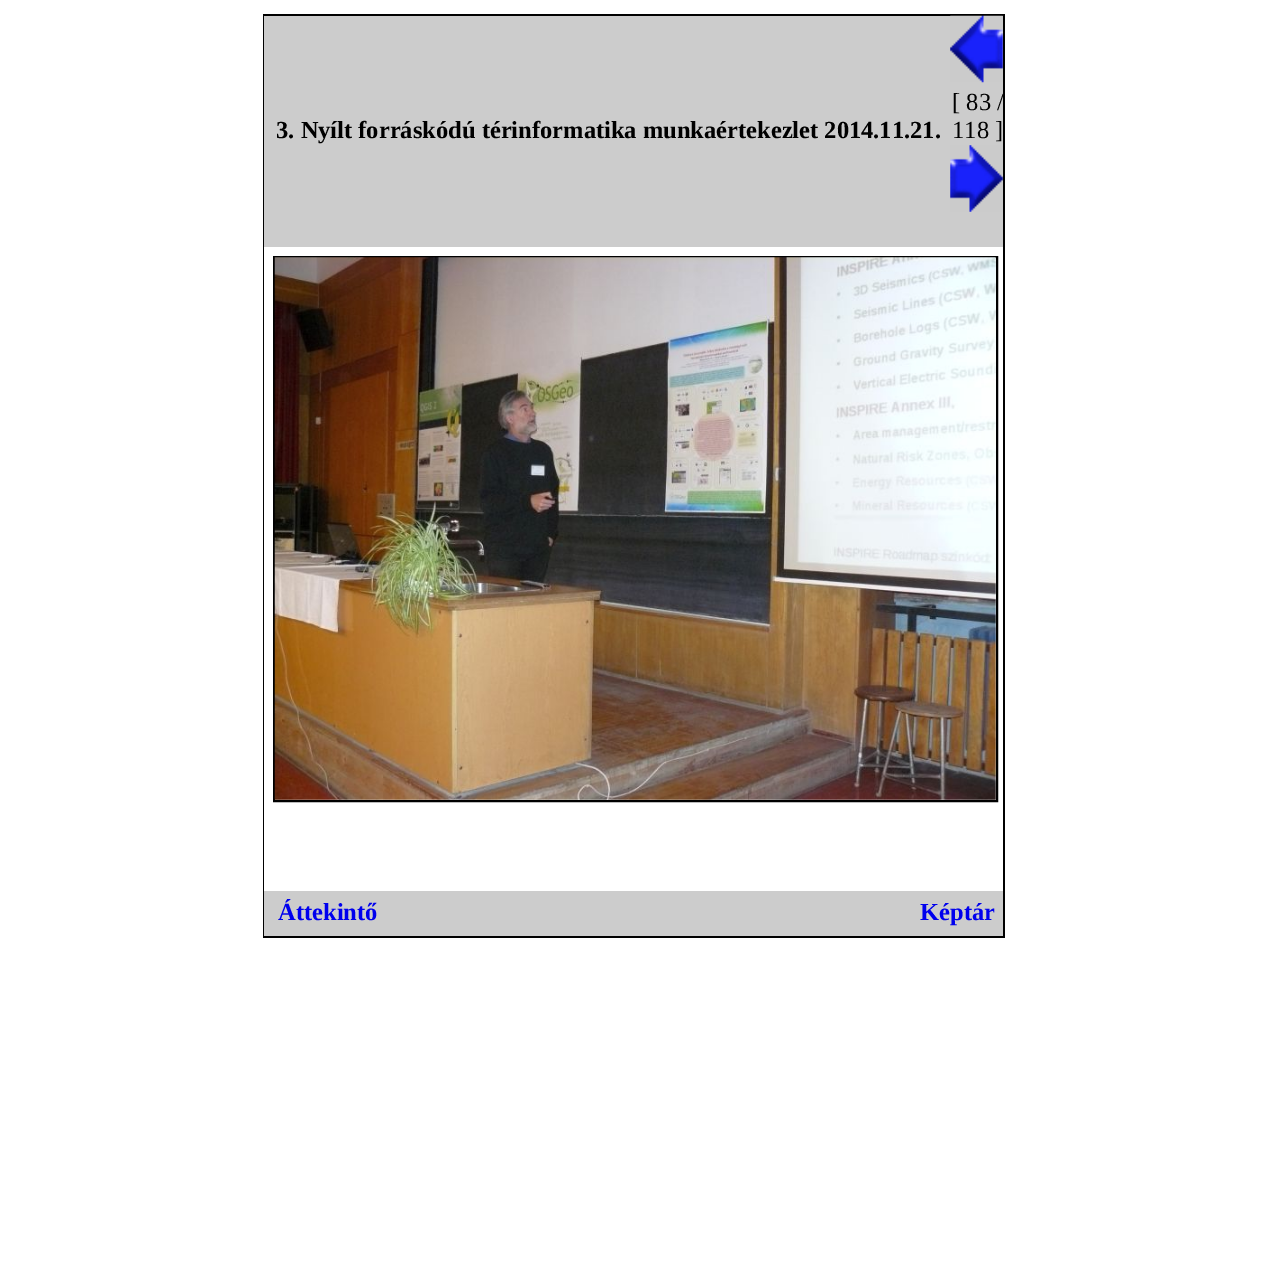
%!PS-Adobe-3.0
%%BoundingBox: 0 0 1266 1262
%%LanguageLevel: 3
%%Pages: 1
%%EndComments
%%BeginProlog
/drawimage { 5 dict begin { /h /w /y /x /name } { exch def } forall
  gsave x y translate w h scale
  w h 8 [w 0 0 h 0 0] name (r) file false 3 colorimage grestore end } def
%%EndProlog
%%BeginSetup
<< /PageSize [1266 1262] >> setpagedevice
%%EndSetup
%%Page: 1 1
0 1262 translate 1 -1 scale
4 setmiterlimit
1 setgray
0 0 1266 1262 rectfill
0 setgray
263 14 742 924 rectfill
0.8 setgray
264 16 739 231 rectfill
(images/1.raw) 950 15 53 68 drawimage
(images/2.raw) 950 145 53 67 drawimage
1 setgray
264 247 739 644 rectfill
0 setgray
2 setlinewidth
274 257 723 544 rectstroke
(images/3.raw) 274 257 722 543 drawimage
0.8 setgray
264 891 739 45 rectfill
/LiberationSerif-Bold [24.5 0 0 -24.5 0 0] selectfont
0 setgray
276 138 moveto (3. Nyílt forráskódú térinformatika munkaértekezlet 2014.11.21.) show
/LiberationSerif-Regular [24.5 0 0 -24.5 0 0] selectfont
952 110 moveto ([ 83 /) show
952 138 moveto (118 ]) show
/LiberationSerif-Bold [24.5 0 0 -24.5 0 0] selectfont
0 0 0.933 setrgbcolor
278 920 moveto (Áttekintő) show
920 920 moveto (Képtár) show
showpage
%%EOF
